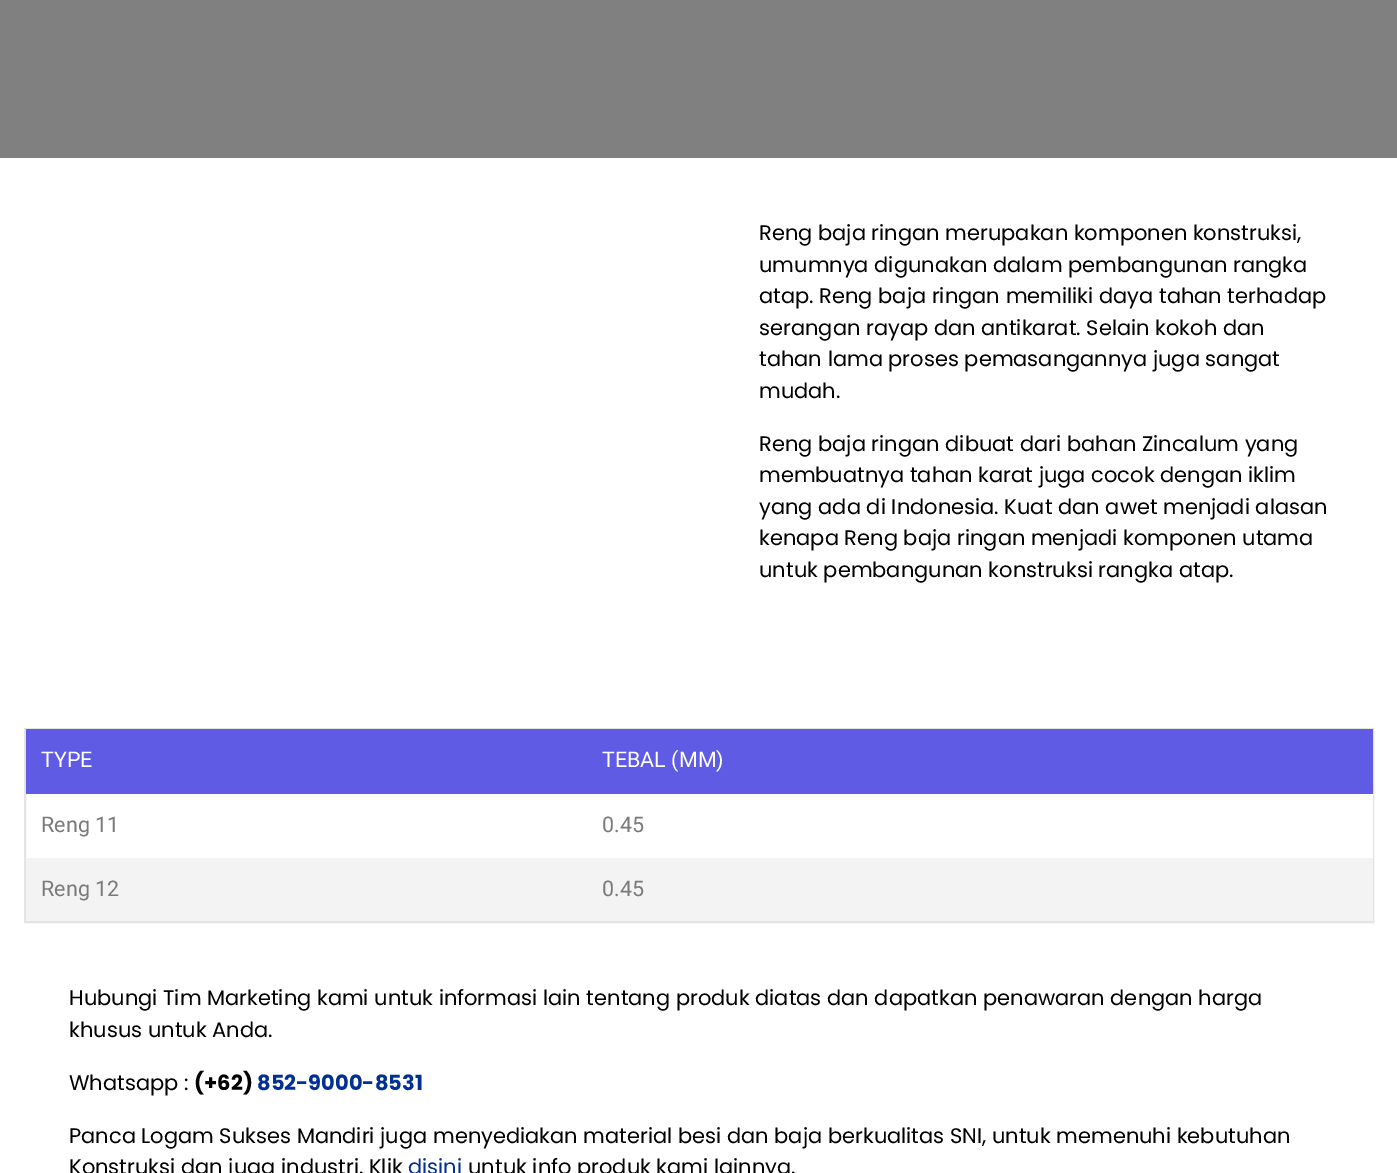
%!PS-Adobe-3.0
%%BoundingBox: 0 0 1397 1173
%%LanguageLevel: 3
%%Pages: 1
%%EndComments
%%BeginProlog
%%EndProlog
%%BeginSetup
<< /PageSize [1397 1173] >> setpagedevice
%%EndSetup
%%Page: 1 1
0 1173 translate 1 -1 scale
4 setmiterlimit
1 setgray
0 0 1397 1173 rectfill
0.502 setgray
0 0 1397 158 rectfill
0.894 setgray
2 setlinewidth
25 729 1348 193 rectstroke
0.376 0.357 0.898 setrgbcolor
26 729 1347 65 rectfill
1 setgray
1372 794 1 64 rectfill
0.953 setgray
26 858 1347 63 rectfill
/Poppins-Regular [21 0 0 -21 0 0] selectfont
0 setgray
759 240 moveto (Reng baja ringan merupakan komponen konstruksi,) show
759 272 moveto (umumnya digunakan dalam pembangunan rangka) show
759 303 moveto (atap. Reng baja ringan memiliki daya tahan terhadap) show
759 335 moveto (serangan rayap dan antikarat. Selain kokoh dan) show
759 366 moveto (tahan lama proses pemasangannya juga sangat) show
759 398 moveto (mudah.) show
759 451 moveto (Reng baja ringan dibuat dari bahan Zincalum yang) show
759 482 moveto (membuatnya tahan karat juga cocok dengan iklim) show
759 514 moveto (yang ada di Indonesia. Kuat dan awet menjadi alasan) show
759 545 moveto (kenapa Reng baja ringan menjadi komponen utama) show
759 577 moveto (untuk pembangunan konstruksi rangka atap.) show
/Roboto-Regular [21.5 0 0 -21.5 0 0] selectfont
1 setgray
41 767 moveto (TYPE) show
602 767 moveto (TEBAL \(MM\)) show
0.478 setgray
41 832 moveto (Reng 11) show
602 832 moveto (0.45) show
41 896 moveto (Reng 12) show
602 896 moveto (0.45) show
/Poppins-Regular [21 0 0 -21 0 0] selectfont
0 setgray
69 1005 moveto (Hubungi Tim Marketing kami untuk informasi lain tentang produk diatas dan dapatkan penawaran dengan harga) show
69 1037 moveto (khusus untuk Anda.) show
69 1090 moveto (Whatsapp :) show
/Poppins-Bold [21 0 0 -21 0 0] selectfont
194 1090 moveto (\(+62\)) show
0 0.188 0.588 setrgbcolor
257 1090 moveto (852-9000-8531) show
/Poppins-Regular [21 0 0 -21 0 0] selectfont
0 setgray
69 1143 moveto (Panca Logam Sukses Mandiri juga menyediakan material besi dan baja berkualitas SNI, untuk memenuhi kebutuhan) show
69 1174 moveto (Konstruksi dan juga industri. Klik) show
0 0.188 0.588 setrgbcolor
408 1174 moveto (disini) show
0 setgray
468 1174 moveto (untuk info produk kami lainnya.) show
showpage
%%EOF
